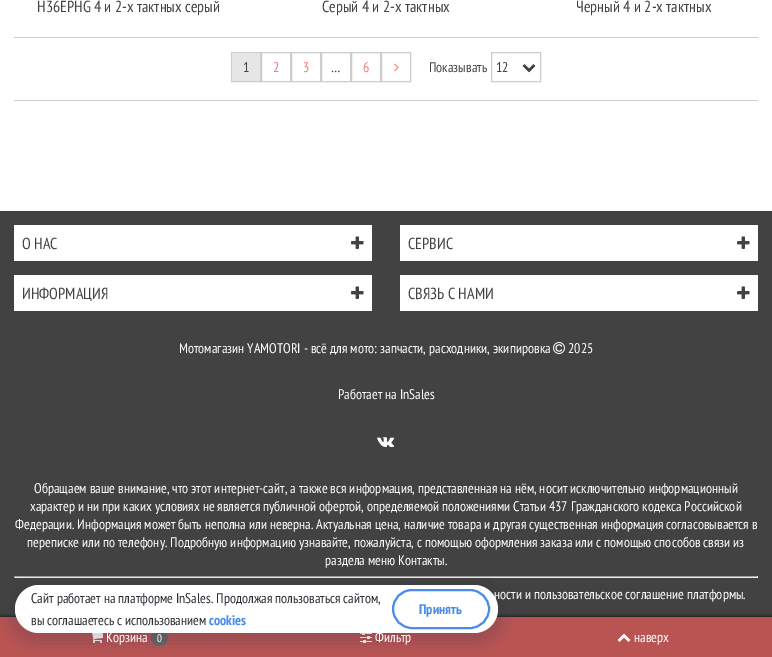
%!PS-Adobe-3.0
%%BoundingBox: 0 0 772 657
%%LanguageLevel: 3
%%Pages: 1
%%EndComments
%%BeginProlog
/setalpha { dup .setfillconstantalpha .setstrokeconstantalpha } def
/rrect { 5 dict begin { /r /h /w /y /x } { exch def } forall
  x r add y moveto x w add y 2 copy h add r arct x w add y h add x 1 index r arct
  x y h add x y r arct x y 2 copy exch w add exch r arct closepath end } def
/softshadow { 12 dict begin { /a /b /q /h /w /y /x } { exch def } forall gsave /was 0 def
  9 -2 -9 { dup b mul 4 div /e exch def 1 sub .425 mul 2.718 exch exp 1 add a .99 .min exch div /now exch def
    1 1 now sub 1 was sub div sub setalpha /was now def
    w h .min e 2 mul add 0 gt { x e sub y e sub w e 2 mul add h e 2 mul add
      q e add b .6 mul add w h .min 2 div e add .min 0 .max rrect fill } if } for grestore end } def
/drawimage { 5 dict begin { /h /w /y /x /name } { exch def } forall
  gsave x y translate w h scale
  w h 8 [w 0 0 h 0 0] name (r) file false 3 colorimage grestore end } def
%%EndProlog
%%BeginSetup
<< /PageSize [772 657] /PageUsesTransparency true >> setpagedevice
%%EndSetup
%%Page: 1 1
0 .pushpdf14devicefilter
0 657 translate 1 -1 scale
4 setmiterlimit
0.259 setgray
0 0 772 657 rectfill
1 setgray
0 0 772 211 rectfill
0.8 setgray
14 37 744 1 rectfill
14 100 744 1 rectfill
231.5 52.5 29 29 rectstroke
0.902 setgray
232 53 28 28 rectfill
0.8 setgray
261.5 52.5 29 29 rectstroke
291.5 52.5 29 29 rectstroke
321.5 52.5 29 29 rectstroke
351.5 52.5 29 29 rectstroke
381.5 52.5 29 29 rectstroke
(images/1.raw) 394 63 5 9 drawimage
491.5 52.5 49 29 rectstroke
(images/2.raw) 522 64 14 9 drawimage
1 setgray
14 225 358 36 rectfill
(images/3.raw) 351 236 13 13 drawimage
400 225 358 36 rectfill
(images/3.raw) 737 236 13 13 drawimage
14 275 358 36 rectfill
(images/3.raw) 351 286 13 13 drawimage
400 275 358 36 rectfill
(images/3.raw) 737 286 13 13 drawimage
(images/4.raw) 553 342 12 12 drawimage
(images/5.raw) 377 437 18 10 drawimage
0.624 setgray
14 576 744 1 rectfill
0.933 setgray
757 576 1 2 rectfill
14 577 744 1 rectfill
0.624 setgray
14 576 1 2 rectfill
0 setgray
0 617 772 40 0 2 1 softshadow
0.729 0.329 0.325 setrgbcolor
0 617 772 40 rectfill
(images/6.raw) 92 633 11 10 drawimage
0.4 setgray
151 630 17 16 8 rrect fill
(images/7.raw) 360 633 12 10 drawimage
0.196 0.196 0.278 setrgbcolor
9 583 495 60 30 8 0.24 softshadow
1 setgray
15 585 483 48 24 rrect fill
0.286 0.549 0.914 setrgbcolor
2 setlinewidth
393 590 96 38 19 rrect stroke
(images/8.raw) 617 633 14 9 drawimage
/PTSansNarrow-Regular [16 0 0 -16 0 0] selectfont
0.259 setgray
37 12 moveto (H36EPHG 4 и 2-х тактных серый) show
322 12 moveto (Серый 4 и 2-х тактных) show
576 12 moveto (Черный 4 и 2-х тактных) show
/PTSansNarrow-Regular [14 0 0 -14 0 0] selectfont
243 72 moveto (1) show
1 0.451 0.447 setrgbcolor
273 72 moveto (2) show
303 72 moveto (3) show
0.259 setgray
331 72 moveto (…) show
1 0.451 0.447 setrgbcolor
363 72 moveto (6) show
0.259 setgray
429 72 moveto (Показывать) show
496 72 moveto (12) show
/PTSansNarrow-Regular [16 0 0 -16 0 0] selectfont
22 249 moveto (О НАС) show
408 249 moveto (СЕРВИС) show
22 299 moveto (ИНФОРМАЦИЯ) show
408 299 moveto (СВЯЗЬ С НАМИ) show
/PTSansNarrow-Regular [14 0 0 -14 0 0] selectfont
1 setgray
179 353 moveto (Мотомагазин YAMOTORI - всё для мото: запчасти, расходники, экипировка) show
568 353 moveto (2025) show
338 399 moveto (Работает на InSales) show
34 493 moveto (Обращаем ваше внимание, что этот интернет-сайт, а также вся информация, представленная на нём, носит исключительно информационный) show
30 511 moveto (характер и ни при каких условиях не является публичной офертой, определяемой положениями Статьи 437 Гражданского кодекса Российской) show
15 529 moveto (Федерации. Информация может быть неполна или неверна. Актуальная цена, наличие товара и другая существенная информация согласовывается в) show
27 547 moveto (переписке или по телефону. Подробную информацию узнавайте, пожалуйста, с помощью оформления заказа или с помощью способов связи из) show
325 565 moveto (раздела меню Контакты.) show
494 599 moveto (ности и пользовательское соглашение платформы.) show
0.169 0.176 0.2 setrgbcolor
31 603 moveto (Сайт работает на платформе InSales. Продолжая пользоваться сайтом,) show
31 625 moveto (вы соглашаетесь с использованием) show
/PTSansNarrow-Bold [14 0 0 -14 0 0] selectfont
0.286 0.549 0.914 setrgbcolor
209 625 moveto (cookies) show
419 614 moveto (Принять) show
/PTSansNarrow-Regular [14 0 0 -14 0 0] selectfont
1 setgray
106 642 moveto (Корзина) show
/PTSansNarrow-Regular [11 0 0 -11 0 0] selectfont
157 642 moveto (0) show
/PTSansNarrow-Regular [14 0 0 -14 0 0] selectfont
375 642 moveto (Фильтр) show
634 642 moveto (наверх) show
.poppdf14devicefilter showpage
%%EOF
